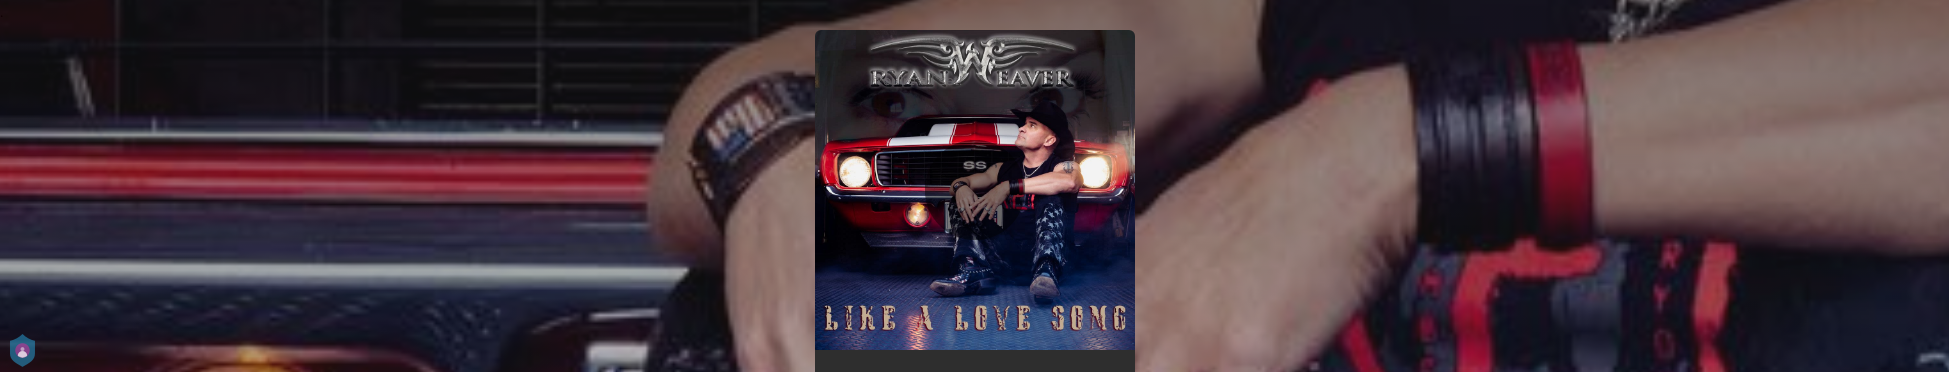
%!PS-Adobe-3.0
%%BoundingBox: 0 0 1949 372
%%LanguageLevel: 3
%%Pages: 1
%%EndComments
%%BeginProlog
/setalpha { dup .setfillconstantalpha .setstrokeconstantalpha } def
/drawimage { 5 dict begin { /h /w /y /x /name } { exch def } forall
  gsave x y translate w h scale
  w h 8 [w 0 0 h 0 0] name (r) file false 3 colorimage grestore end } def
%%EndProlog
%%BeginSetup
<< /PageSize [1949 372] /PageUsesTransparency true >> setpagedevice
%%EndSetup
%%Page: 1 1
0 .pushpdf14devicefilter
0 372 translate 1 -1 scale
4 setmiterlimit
1 setgray
0 0 1949 372 rectfill
(images/1.raw) 0 0 1949 372 drawimage
(images/2.raw) 815 30 320 320 drawimage
0.45 setalpha
0 setgray
newpath 975 190 50 0 360 arc closepath fill
1 setalpha
0.18 setgray
815 350 320 22 rectfill
(images/3.raw) 10 334 25 33 drawimage
/Montserrat-Regular [13 0 0 -13 0 0] selectfont
0.404 0.392 0.4 setrgbcolor
875 85 moveto 1 0 32 (You're all set!) widthshow
.poppdf14devicefilter showpage
%%EOF
